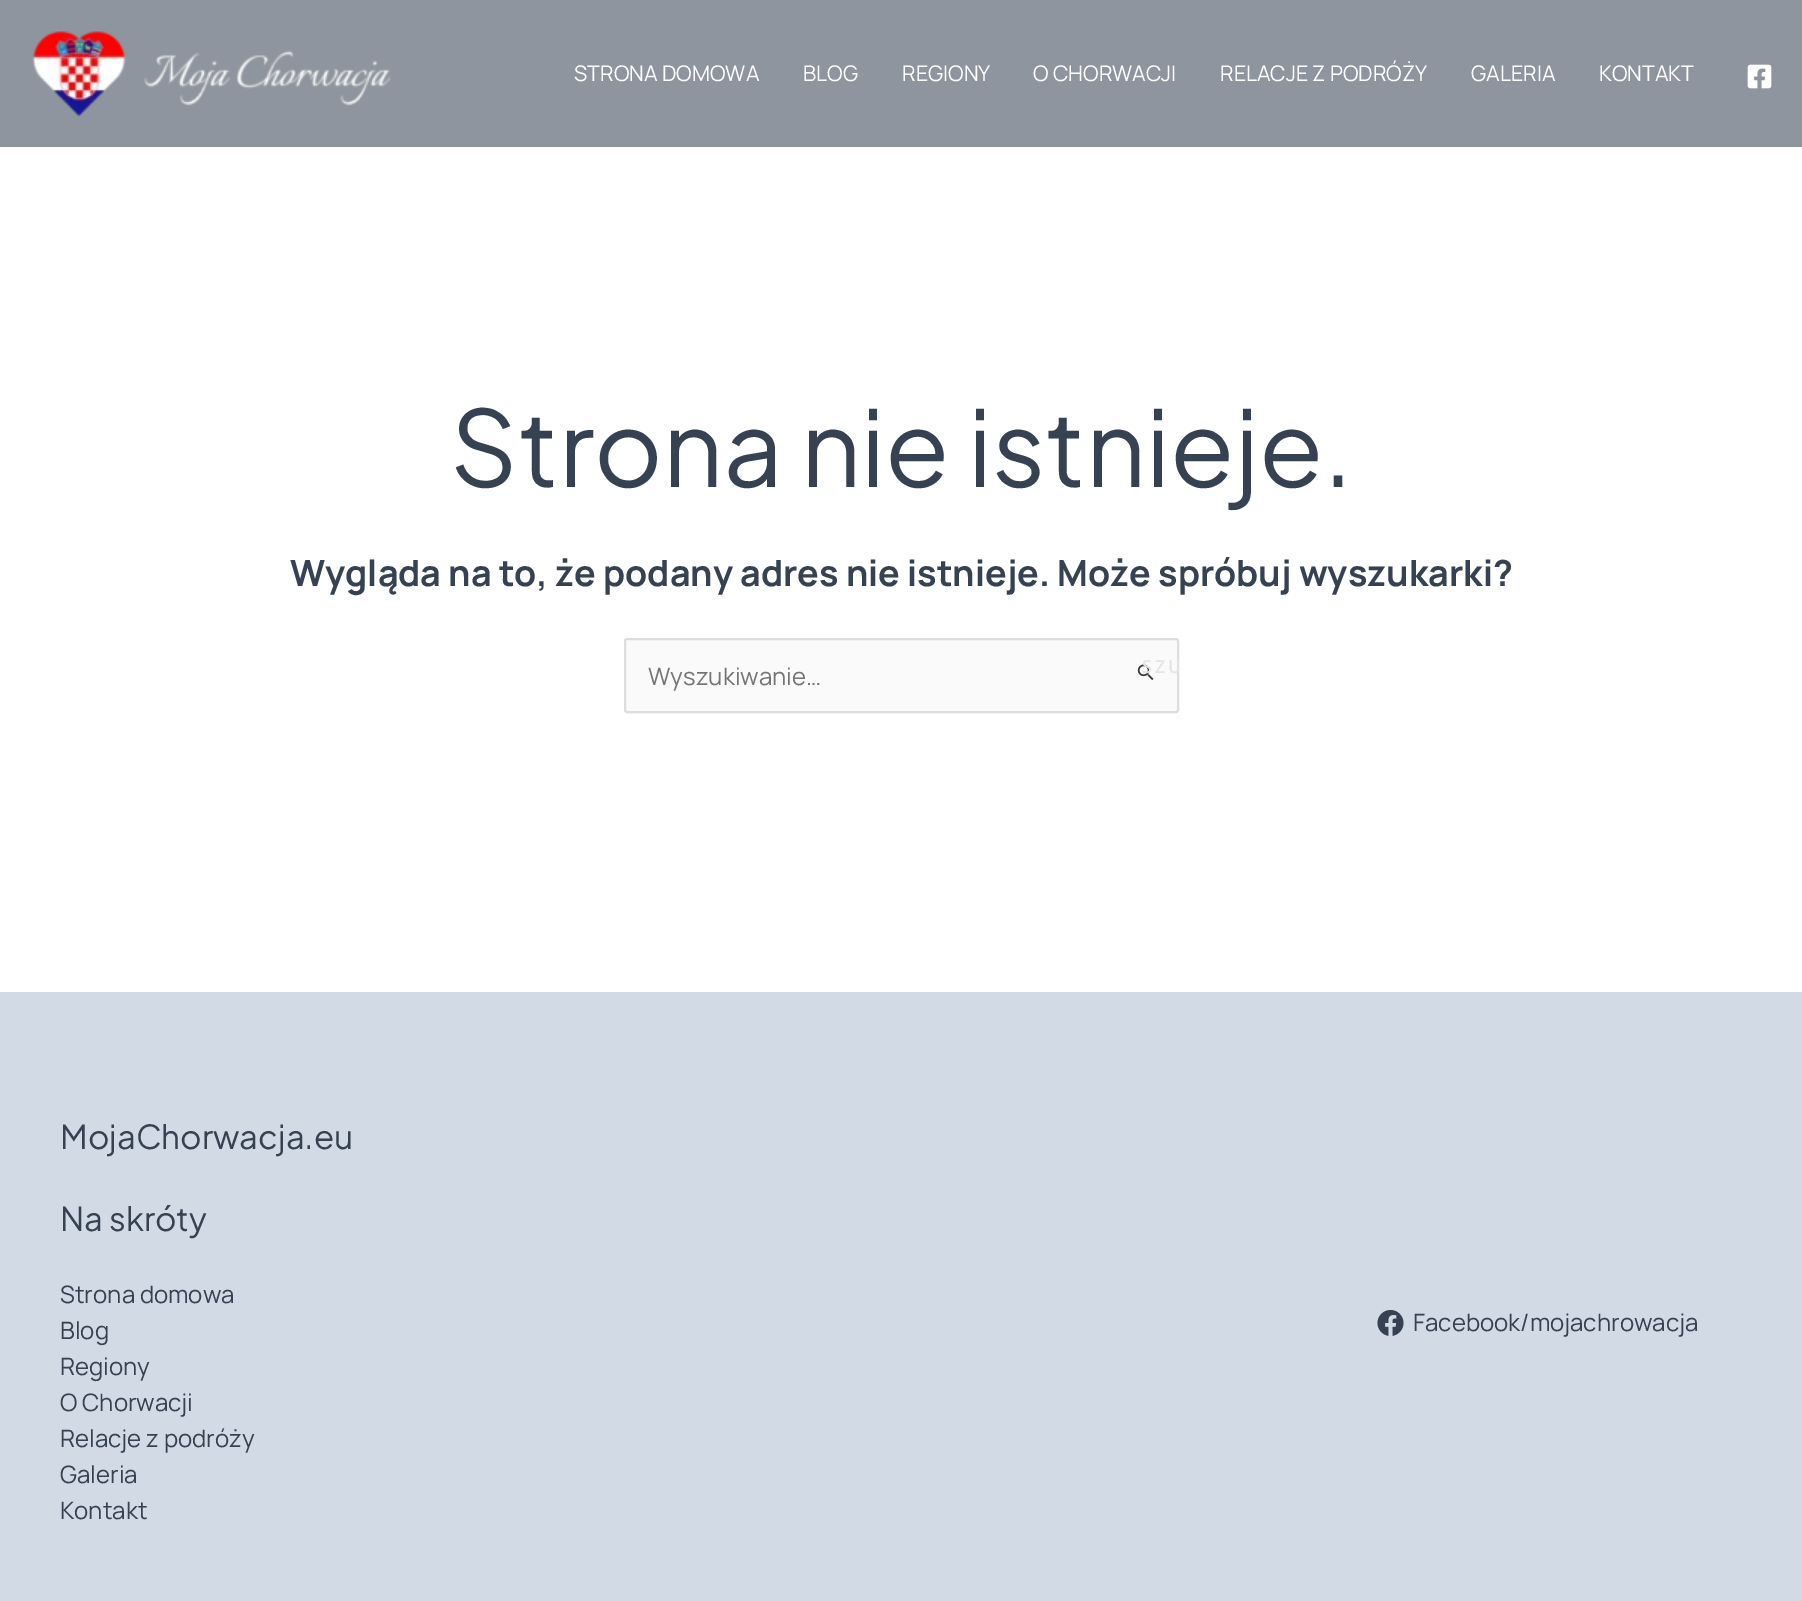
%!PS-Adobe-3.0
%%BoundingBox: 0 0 1802 1601
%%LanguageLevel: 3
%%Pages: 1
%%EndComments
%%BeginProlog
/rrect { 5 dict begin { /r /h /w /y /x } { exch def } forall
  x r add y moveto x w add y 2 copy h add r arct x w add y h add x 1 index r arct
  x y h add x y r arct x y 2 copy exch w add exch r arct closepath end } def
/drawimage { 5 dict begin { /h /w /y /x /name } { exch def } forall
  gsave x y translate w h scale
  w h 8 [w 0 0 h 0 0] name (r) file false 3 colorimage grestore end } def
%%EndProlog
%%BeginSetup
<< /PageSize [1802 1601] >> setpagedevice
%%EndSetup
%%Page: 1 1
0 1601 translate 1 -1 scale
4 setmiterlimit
1 setgray
0 0 1802 1601 rectfill
0.561 0.584 0.62 setrgbcolor
0 0 1802 147 rectfill
(images/1.raw) 32 31 359 86 drawimage
(images/2.raw) 1747 64 25 25 drawimage
0.98 setgray
625 639 553 73 2 rrect gsave fill grestore
0.867 setgray
2 setlinewidth
stroke
(images/3.raw) 1137 664 17 17 drawimage
0.82 0.855 0.898 setrgbcolor
0 992 1802 609 rectfill
(images/4.raw) 1377 1310 27 26 drawimage
/Manrope-Regular [21.5 0 0 -21.5 0 0] selectfont
1 setgray
574 81 moveto (STRONA DOMOWA) show
803 81 moveto (BLOG) show
902 81 moveto (REGIONY) show
1033 81 moveto (O CHORWACJI) show
1220 81 moveto (RELACJE Z PODRÓŻY) show
1471 81 moveto (GALERIA) show
1599 81 moveto (KONTAKT) show
/PlusJakartaSans-Regular [105 0 0 -105 0 0] selectfont
0.212 0.255 0.318 setrgbcolor
450 487 moveto (Strona nie istnieje.) show
/Manrope-Bold [36 0 0 -36 0 0] selectfont
290 586 moveto (Wygląda na to, że podany adres nie istnieje. Może spróbuj wyszukarki?) show
/Manrope-Regular [24 0 0 -24 0 0] selectfont
0.459 setgray
648 685 moveto (Wyszukiwanie…) show
gsave
1112 638 67 57 3 rrect clip newpath
/OpenSans-SemiBold [18 0 0 -18 0 0] selectfont
0.898 setgray
1142 673 moveto 3 0 (SZU) ashow
grestore
/PlusJakartaSans-Regular [33 0 0 -33 0 0] selectfont
0.212 0.255 0.318 setrgbcolor
60 1149 moveto (MojaChorwacja.eu) show
60 1231 moveto (Na skróty) show
/Manrope-Regular [24 0 0 -24 0 0] selectfont
60 1303 moveto (Strona domowa) show
60 1339 moveto (Blog) show
60 1375 moveto (Regiony) show
60 1411 moveto (O Chorwacji) show
60 1447 moveto (Relacje z podróży) show
60 1483 moveto (Galeria) show
60 1519 moveto (Kontakt) show
1413 1331 moveto (Facebook/mojachrowacja) show
showpage
%%EOF
